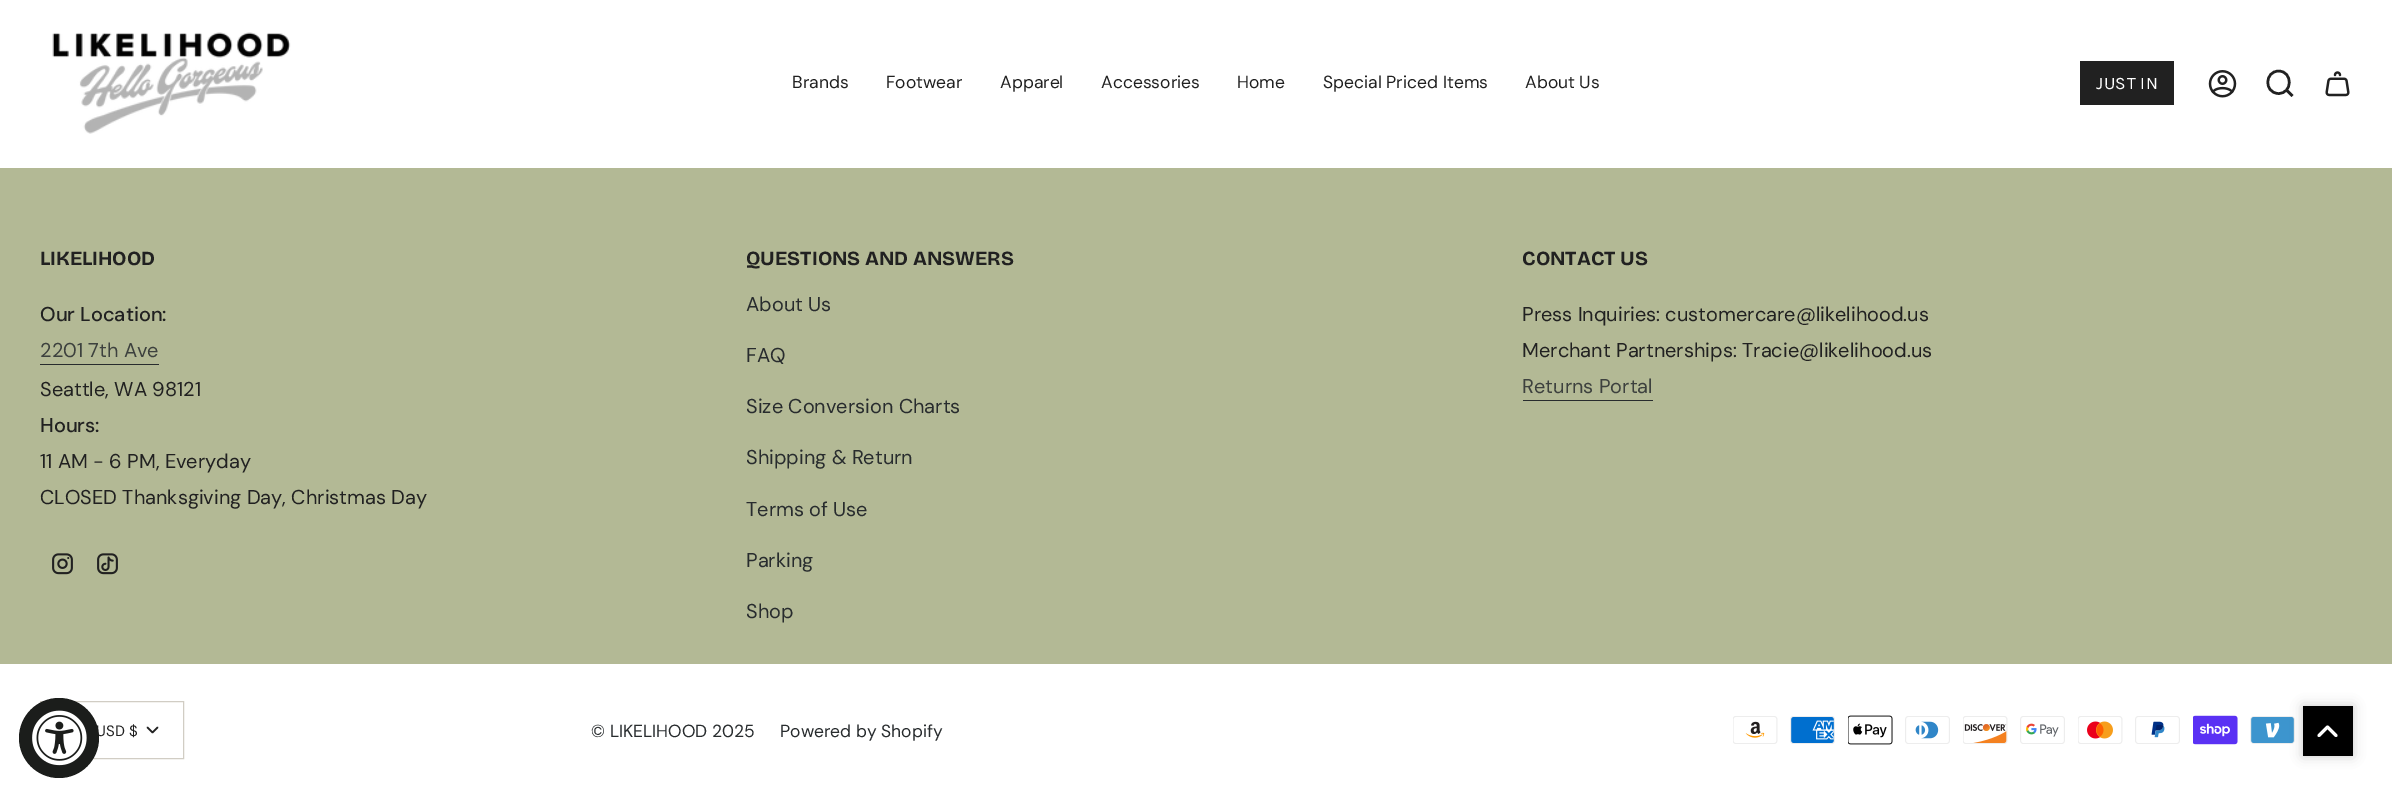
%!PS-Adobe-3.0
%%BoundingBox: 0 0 2392 796
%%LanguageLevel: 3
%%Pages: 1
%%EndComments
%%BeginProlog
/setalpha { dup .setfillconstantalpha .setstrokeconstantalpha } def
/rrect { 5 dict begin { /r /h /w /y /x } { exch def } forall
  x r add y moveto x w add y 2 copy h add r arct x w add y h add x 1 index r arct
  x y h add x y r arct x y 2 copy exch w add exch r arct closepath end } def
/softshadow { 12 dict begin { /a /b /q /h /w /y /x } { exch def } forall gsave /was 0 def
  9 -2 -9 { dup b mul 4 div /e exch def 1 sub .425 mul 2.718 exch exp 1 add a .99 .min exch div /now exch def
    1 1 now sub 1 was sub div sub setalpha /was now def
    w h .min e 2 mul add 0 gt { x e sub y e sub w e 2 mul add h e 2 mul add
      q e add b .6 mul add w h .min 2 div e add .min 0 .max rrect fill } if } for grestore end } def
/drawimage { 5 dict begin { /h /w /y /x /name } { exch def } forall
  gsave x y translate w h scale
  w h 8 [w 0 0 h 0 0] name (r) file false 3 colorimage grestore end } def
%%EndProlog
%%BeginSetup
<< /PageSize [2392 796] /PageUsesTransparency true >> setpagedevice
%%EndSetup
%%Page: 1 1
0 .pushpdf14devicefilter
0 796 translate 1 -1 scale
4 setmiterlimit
1 setgray
0 0 2392 796 rectfill
(images/1.raw) 52 32 239 102 drawimage
0.129 setgray
2080 61 94 44 rectfill
(images/2.raw) 2208 70 29 28 drawimage
2.5 setlinewidth
newpath 2278.5 71 moveto 2293 71 2293 94 2278 93.5 curveto 2264 92.5 2264.5 71.5 2278.5 71 curveto closepath 2286.5 90 moveto 2292.5 96 lineto stroke
(images/3.raw) 2325 71 25 26 drawimage
0.702 0.725 0.584 setrgbcolor
0 168 2392 496 rectfill
0.157 0.173 0.18 setrgbcolor
40 364 119 1 rectfill
(images/4.raw) 52 553 21 22 drawimage
(images/5.raw) 97 553 21 22 drawimage
1523 400 130 1 rectfill
0.82 0.804 0.769 setrgbcolor
1 setlinewidth
40.5 701.5 143 57 rectstroke
0.129 setgray
1.7 setlinewidth
1 setlinecap
1 setlinejoin
newpath 147.5 727.5 moveto 152.5 732.5 lineto 157.5 727.5 lineto stroke
(images/6.raw) 1733 716 45 28 drawimage
(images/7.raw) 1790 716 45 28 drawimage
(images/8.raw) 1848 715 45 30 drawimage
(images/9.raw) 1905 716 45 28 drawimage
(images/10.raw) 1963 716 45 28 drawimage
(images/11.raw) 2020 716 45 28 drawimage
(images/12.raw) 2078 716 45 28 drawimage
(images/13.raw) 2135 716 45 28 drawimage
(images/14.raw) 2193 715 45 30 drawimage
(images/15.raw) 2250 716 45 28 drawimage
0 setgray
2303 706 50 50 0 6 0.2 softshadow
2303 706 50 50 rectfill
1 setgray
2.9 setlinewidth
newpath 2319 735.5 moveto 2327.5 727 lineto 2336 735.5 lineto stroke
/DMSans-Regular [17.5 0 0 -17.5 0 0] selectfont
0.129 setgray
792 88 moveto (Brands) show
886 88 moveto (Footwear) show
1000 88 moveto (Apparel) show
1101 88 moveto (Accessories) show
1237 88 moveto (Home) show
1323 88 moveto (Special Priced Items) show
1525 88 moveto (About Us) show
/Karla-Regular [17.5 0 0 -17.5 0 0] selectfont
1 setgray
2096 89 moveto 0.5 0 (JUST IN) ashow
/BricolageGrotesque-Bold [20 0 0 -20 0 0] selectfont
0.129 setgray
40 265 moveto (LIKELIHOOD) show
/DMSans-Medium [20 0 0 -20 0 0] selectfont
40 321 moveto (Our Location:) show
/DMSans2-Regular [20 0 0 -20 0 0] selectfont
0.239 0.255 0.243 setrgbcolor
40 357 moveto (2201 7th Ave) show
0.129 setgray
40 396 moveto (Seattle, WA 98121) show
/DMSans-Medium [20 0 0 -20 0 0] selectfont
40 432 moveto (Hours:) show
/DMSans2-Regular [20 0 0 -20 0 0] selectfont
40 468 moveto (11 AM - 6 PM, Everyday) show
40 504 moveto (CLOSED Thanksgiving Day, Christmas Day) show
/BricolageGrotesque-Bold [20 0 0 -20 0 0] selectfont
746 265 moveto (QUESTIONS AND ANSWERS) show
/DMSans2-Regular [20 0 0 -20 0 0] selectfont
0.157 0.173 0.18 setrgbcolor
746 311 moveto (About Us) show
746 362 moveto (FAQ) show
746 413 moveto (Size Conversion Charts) show
746 464 moveto (Shipping & Return) show
746 516 moveto (Terms of Use) show
746 567 moveto (Parking) show
746 618 moveto (Shop) show
/BricolageGrotesque-Bold [20 0 0 -20 0 0] selectfont
0.129 setgray
1522 265 moveto (CONTACT US) show
/DMSans2-Regular [20 0 0 -20 0 0] selectfont
1522 321 moveto (Press Inquiries: customercare@likelihood.us) show
1522 357 moveto (Merchant Partnerships: Tracie@likelihood.us) show
0.239 0.255 0.243 setrgbcolor
1522 393 moveto (Returns Portal) show
/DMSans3-Regular [15 0 0 -15 0 0] selectfont
0.129 setgray
96 736 moveto (USD $) show
/DMSans-Regular [17.5 0 0 -17.5 0 0] selectfont
0.157 0.173 0.18 setrgbcolor
591 737 moveto (© LIKELIHOOD 2025) show
780 737 moveto (Powered by Shopify) show
0.106 0.114 0.106 setrgbcolor
newpath 59 738 40 0 360 arc closepath fill
(images/16.raw) 32 710 55 56 drawimage
.poppdf14devicefilter showpage
%%EOF
